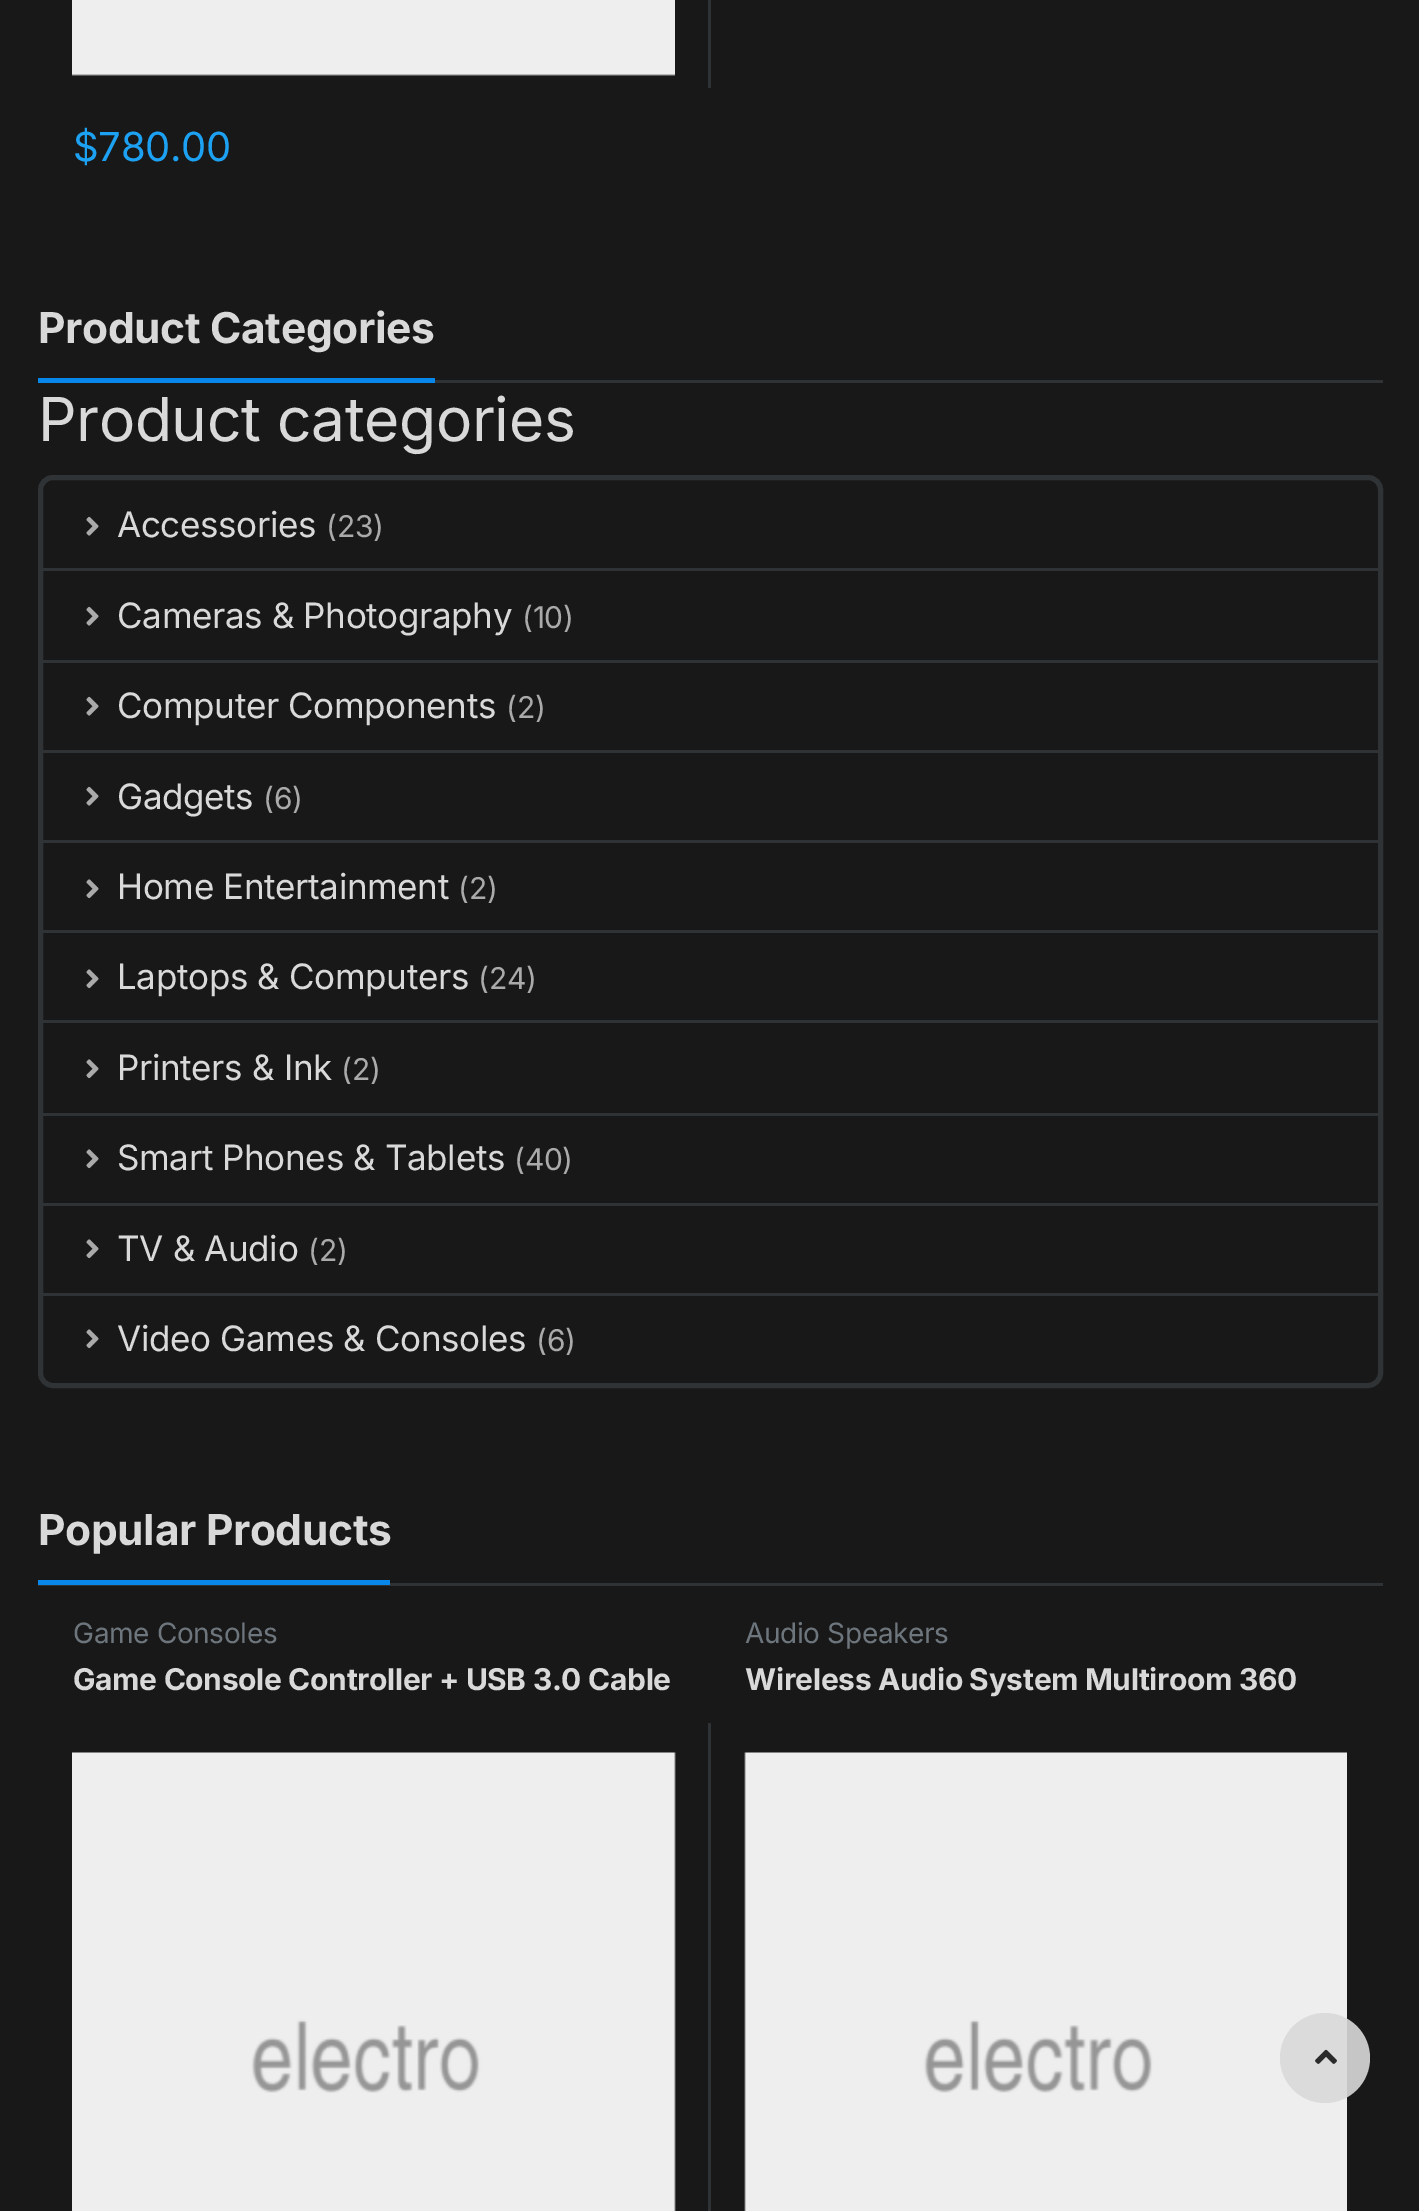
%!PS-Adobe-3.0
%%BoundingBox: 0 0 1419 2211
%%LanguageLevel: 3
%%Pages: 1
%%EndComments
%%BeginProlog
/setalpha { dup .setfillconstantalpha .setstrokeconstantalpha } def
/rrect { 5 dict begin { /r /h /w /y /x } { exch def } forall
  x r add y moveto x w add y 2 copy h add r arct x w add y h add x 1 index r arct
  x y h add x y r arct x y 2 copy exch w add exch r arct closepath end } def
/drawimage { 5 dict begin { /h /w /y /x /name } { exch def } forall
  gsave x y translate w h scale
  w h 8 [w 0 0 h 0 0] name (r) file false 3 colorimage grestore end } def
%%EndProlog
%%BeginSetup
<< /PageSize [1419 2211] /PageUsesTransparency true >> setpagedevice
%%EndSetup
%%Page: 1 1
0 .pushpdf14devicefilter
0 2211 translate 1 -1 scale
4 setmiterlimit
0.094 setgray
0 0 1419 2211 rectfill
0.184 0.2 0.212 setrgbcolor
708 0 3 88 rectfill
(images/1.raw) 72 0 603 76 drawimage
435 380 948 3 rectfill
0.027 0.529 0.918 setrgbcolor
38 378 397 5 rectfill
0.184 0.2 0.212 setrgbcolor
5 setlinewidth
40.5 477.5 1340 908 12.5 rrect stroke
(images/2.raw) 86 516 13 20 drawimage
43 568 1335 3 rectfill
(images/2.raw) 86 606 13 20 drawimage
43 660 1335 3 rectfill
(images/2.raw) 86 696 13 20 drawimage
43 750 1335 3 rectfill
(images/2.raw) 86 786 13 20 drawimage
43 840 1335 3 rectfill
(images/3.raw) 86 879 13 20 drawimage
43 930 1335 3 rectfill
(images/3.raw) 86 969 13 20 drawimage
43 1020 1335 3 rectfill
(images/3.raw) 86 1059 13 20 drawimage
43 1113 1335 3 rectfill
(images/3.raw) 86 1149 13 20 drawimage
43 1203 1335 3 rectfill
(images/3.raw) 86 1239 13 20 drawimage
43 1293 1335 3 rectfill
(images/3.raw) 86 1329 13 20 drawimage
38 1583 1345 3 rectfill
0.027 0.529 0.918 setrgbcolor
38 1580 352 5 rectfill
(images/4.raw) 72 1752 604 459 drawimage
0.184 0.2 0.212 setrgbcolor
708 1723 3 488 rectfill
(images/5.raw) 744 1752 603 459 drawimage
0.9 setalpha
0.851 setgray
newpath 1325 2058 45 0 360 arc closepath fill
1 setalpha
(images/6.raw) 1315 2049 22 15 drawimage
/Inter-Regular [40 0 0 -40 0 0] selectfont
0.114 0.631 0.949 setrgbcolor
73 161 moveto -0.35 0 ($780.00) ashow
/Inter-Bold [42.5 0 0 -42.5 0 0] selectfont
0.851 setgray
38 343 moveto -0.35 0 (Product Categories) ashow
/Inter-Regular [60.5 0 0 -60.5 0 0] selectfont
38 441 moveto -0.35 0 (Product categories) ashow
/Inter-Regular [35 0 0 -35 0 0] selectfont
117 537 moveto -0.35 0 (Accessories) ashow
/Inter-Regular [30 0 0 -30 0 0] selectfont
0.667 setgray
326 537 moveto -0.35 0 (\(23\)) ashow
/Inter-Regular [35 0 0 -35 0 0] selectfont
0.851 setgray
117 628 moveto -0.35 0 (Cameras & Photography) ashow
/Inter-Regular [30 0 0 -30 0 0] selectfont
0.667 setgray
522 628 moveto -0.35 0 (\(10\)) ashow
/Inter-Regular [35 0 0 -35 0 0] selectfont
0.851 setgray
117 718 moveto -0.35 0 (Computer Components) ashow
/Inter-Regular [30 0 0 -30 0 0] selectfont
0.667 setgray
506 718 moveto -0.35 0 (\(2\)) ashow
/Inter-Regular [35 0 0 -35 0 0] selectfont
0.851 setgray
117 809 moveto -0.35 0 (Gadgets) ashow
/Inter-Regular [30 0 0 -30 0 0] selectfont
0.667 setgray
263 809 moveto -0.35 0 (\(6\)) ashow
/Inter-Regular [35 0 0 -35 0 0] selectfont
0.851 setgray
117 899 moveto -0.35 0 (Home Entertainment) ashow
/Inter-Regular [30 0 0 -30 0 0] selectfont
0.667 setgray
458 899 moveto -0.35 0 (\(2\)) ashow
/Inter-Regular [35 0 0 -35 0 0] selectfont
0.851 setgray
117 989 moveto -0.35 0 (Laptops & Computers) ashow
/Inter-Regular [30 0 0 -30 0 0] selectfont
0.667 setgray
478 989 moveto -0.35 0 (\(24\)) ashow
/Inter-Regular [35 0 0 -35 0 0] selectfont
0.851 setgray
117 1080 moveto -0.35 0 (Printers & Ink) ashow
/Inter-Regular [30 0 0 -30 0 0] selectfont
0.667 setgray
341 1080 moveto -0.35 0 (\(2\)) ashow
/Inter-Regular [35 0 0 -35 0 0] selectfont
0.851 setgray
117 1170 moveto -0.35 0 (Smart Phones & Tablets) ashow
/Inter-Regular [30 0 0 -30 0 0] selectfont
0.667 setgray
514 1170 moveto -0.35 0 (\(40\)) ashow
/Inter-Regular [35 0 0 -35 0 0] selectfont
0.851 setgray
117 1261 moveto -0.35 0 (TV & Audio) ashow
/Inter-Regular [30 0 0 -30 0 0] selectfont
0.667 setgray
308 1261 moveto -0.35 0 (\(2\)) ashow
/Inter-Regular [35 0 0 -35 0 0] selectfont
0.851 setgray
117 1351 moveto -0.35 0 (Video Games & Consoles) ashow
/Inter-Regular [30 0 0 -30 0 0] selectfont
0.667 setgray
536 1351 moveto -0.35 0 (\(6\)) ashow
/Inter-Bold [42.5 0 0 -42.5 0 0] selectfont
0.851 setgray
38 1545 moveto -0.35 0 (Popular Products) ashow
/Inter-Regular [28 0 0 -28 0 0] selectfont
0.431 0.463 0.49 setrgbcolor
73 1643 moveto -0.35 0 (Game Consoles) ashow
/Inter-Bold [30 0 0 -30 0 0] selectfont
0.851 setgray
73 1690 moveto -0.35 0 (Game Console Controller + USB 3.0 Cable) ashow
/Inter-Regular [28 0 0 -28 0 0] selectfont
0.431 0.463 0.49 setrgbcolor
745 1643 moveto -0.35 0 (Audio Speakers) ashow
/Inter-Bold [30 0 0 -30 0 0] selectfont
0.851 setgray
745 1690 moveto -0.35 0 (Wireless Audio System Multiroom 360) ashow
.poppdf14devicefilter showpage
%%EOF
